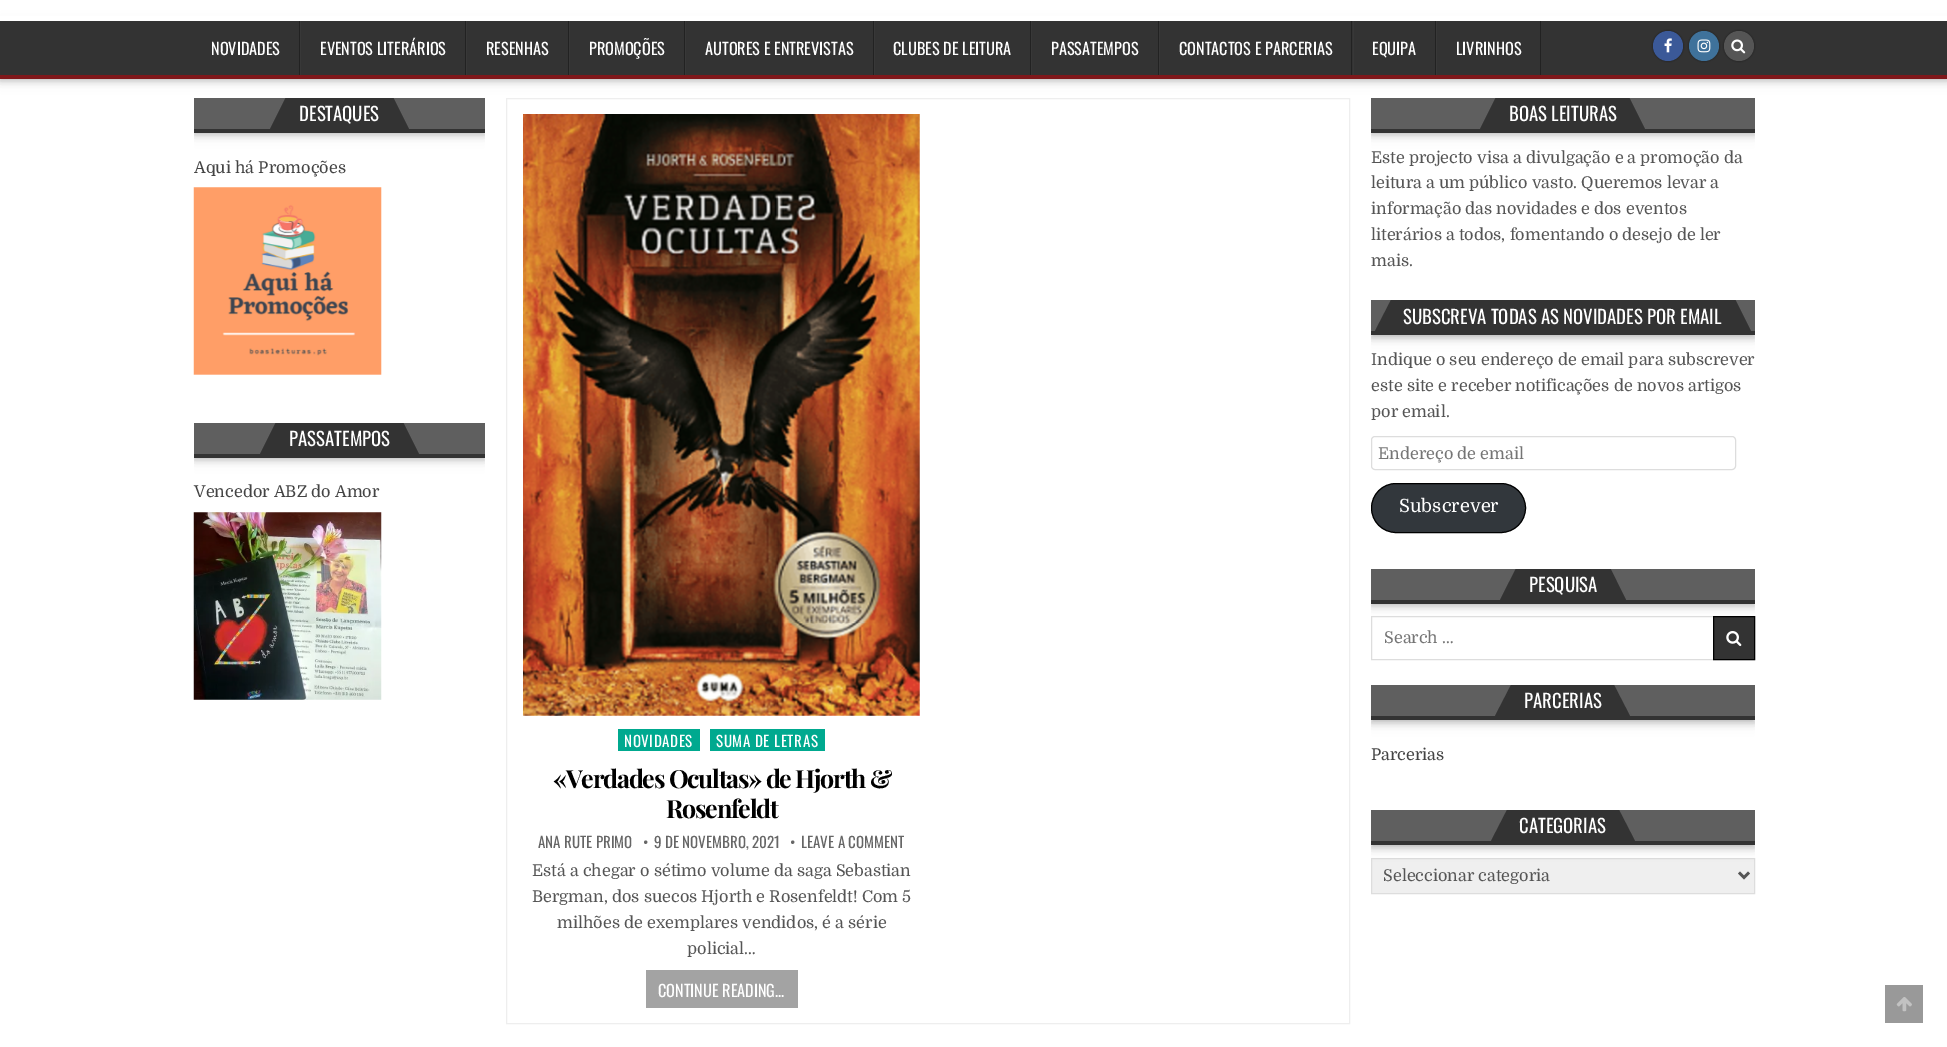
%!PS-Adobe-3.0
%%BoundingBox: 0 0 1947 1047
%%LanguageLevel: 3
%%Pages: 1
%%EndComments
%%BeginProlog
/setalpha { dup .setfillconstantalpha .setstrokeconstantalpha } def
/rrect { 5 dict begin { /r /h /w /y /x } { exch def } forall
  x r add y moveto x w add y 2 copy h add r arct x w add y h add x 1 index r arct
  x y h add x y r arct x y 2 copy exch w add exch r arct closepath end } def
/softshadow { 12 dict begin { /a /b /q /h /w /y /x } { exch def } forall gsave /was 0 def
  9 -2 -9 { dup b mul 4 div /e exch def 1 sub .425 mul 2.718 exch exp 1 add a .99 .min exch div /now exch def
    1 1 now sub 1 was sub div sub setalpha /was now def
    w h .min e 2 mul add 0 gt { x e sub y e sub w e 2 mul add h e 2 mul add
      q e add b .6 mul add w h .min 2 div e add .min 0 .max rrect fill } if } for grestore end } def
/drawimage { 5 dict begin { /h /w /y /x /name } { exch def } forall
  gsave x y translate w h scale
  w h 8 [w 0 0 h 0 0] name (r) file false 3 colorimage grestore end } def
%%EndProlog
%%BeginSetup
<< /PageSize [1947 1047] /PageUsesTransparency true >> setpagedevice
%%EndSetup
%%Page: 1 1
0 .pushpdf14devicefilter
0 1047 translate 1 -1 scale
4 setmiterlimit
1 setgray
0 0 1947 1047 rectfill
0 setgray
0 24 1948 57 0 6 0.12 softshadow
0 24 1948 57 0 3 0.16 softshadow
1 setgray
0 16 1947 5 rectfill
0.2 setgray
0 21 1947 54 rectfill
0.498 0.094 0.106 setrgbcolor
0 75 1947 4 rectfill
0.133 setgray
299 21 1 54 rectfill
465 21 1 54 rectfill
0.22 setgray
300 21 1 54 rectfill
0.133 setgray
568 21 1 54 rectfill
0.22 setgray
466 21 1 54 rectfill
0.133 setgray
684 21 1 54 rectfill
0.22 setgray
569 21 1 54 rectfill
0.133 setgray
873 21 1 54 rectfill
0.22 setgray
685 21 1 54 rectfill
0.133 setgray
1030 21 1 54 rectfill
0.22 setgray
874 21 1 54 rectfill
0.133 setgray
1158 21 1 54 rectfill
0.22 setgray
1031 21 1 54 rectfill
0.133 setgray
1351 21 1 54 rectfill
0.22 setgray
1159 21 1 54 rectfill
0.133 setgray
1435 21 1 54 rectfill
0.22 setgray
1353 21 1 54 rectfill
0.133 setgray
1540 21 1 54 rectfill
0.22 setgray
1436 21 1 54 rectfill
0 setgray
1653 31 30 30 15 1 0.5 softshadow
0.231 0.349 0.596 setrgbcolor
newpath 1668 46 15 0 360 arc closepath fill
(images/1.raw) 1664 38 8 15 drawimage
0 setgray
1689 31 30 30 15 1 0.5 softshadow
0.247 0.447 0.608 setrgbcolor
newpath 1704 46 15 0 360 arc closepath fill
(images/2.raw) 1697 39 14 14 drawimage
0 setgray
1724 31 30 30 15 1 0.5 softshadow
0.333 setgray
newpath 1739 46 15 0 360 arc closepath fill
(images/3.raw) 1731 39 15 15 drawimage
gsave
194 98 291 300 rectclip
0 setgray
194 100 291 35 0 6 0.12 softshadow
194 100 291 35 0 3 0.16 softshadow
grestore
0.373 setgray
194 98 291 31 rectfill
0.2 setgray
194 129 291 4 rectfill
289 98 101 31 rectfill
gsave
194 98 291 31 rectclip
newpath 289 91 moveto 289 129 lineto 270 129 lineto closepath fill
newpath 390 129 moveto 390 91 lineto 409 129 lineto closepath fill
grestore
(images/4.raw) 193 187 189 188 drawimage
gsave
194 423 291 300 rectclip
0 setgray
194 425 291 35 0 6 0.12 softshadow
194 425 291 35 0 3 0.16 softshadow
grestore
0.373 setgray
194 423 291 31 rectfill
0.2 setgray
194 454 291 4 rectfill
279 423 121 31 rectfill
gsave
194 423 291 31 rectclip
newpath 279 416 moveto 279 454 lineto 260 454 lineto closepath fill
newpath 400 454 moveto 400 416 lineto 419 454 lineto closepath fill
grestore
(images/5.raw) 193 512 189 188 drawimage
0.933 setgray
506.5 98.5 843 925 rectstroke
(images/6.raw) 523 114 397 602 drawimage
0 0.663 0.561 setrgbcolor
618 729 82 22 rectfill
710 729 115 22 rectfill
0.639 setgray
646 970 152 38 rectfill
gsave
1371 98 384 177 rectclip
0 setgray
1371 100 384 35 0 6 0.12 softshadow
1371 100 384 35 0 3 0.16 softshadow
grestore
0.373 setgray
1371 98 384 31 rectfill
0.2 setgray
1371 129 384 4 rectfill
1499 98 127 31 rectfill
gsave
1371 98 384 31 rectclip
newpath 1499 91 moveto 1499 129 lineto 1480 129 lineto closepath fill
newpath 1626 129 moveto 1626 91 lineto 1645 129 lineto closepath fill
grestore
gsave
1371 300 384 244 rectclip
0 setgray
1371 303 384 35 0 6 0.12 softshadow
1371 303 384 35 0 3 0.16 softshadow
grestore
0.373 setgray
1371 300 384 31 rectfill
0.2 setgray
1371 331 384 4 rectfill
1394 300 339 31 rectfill
gsave
1371 300 384 31 rectclip
newpath 1394 294 moveto 1394 331 lineto 1375 331 lineto closepath fill
newpath 1732.5 331 moveto 1732.5 294 lineto 1751 331 lineto closepath fill
grestore
0.867 setgray
1371.5 436.5 364 33 3.5 rrect stroke
0.196 0.216 0.235 setrgbcolor
1371.5 483.5 154 49 24.5 rrect gsave fill grestore
0 setgray
stroke
gsave
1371 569 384 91 rectclip
1371 571 384 35 0 6 0.12 softshadow
1371 571 384 35 0 3 0.16 softshadow
grestore
0.373 setgray
1371 569 384 31 rectfill
0.2 setgray
1371 600 384 4 rectfill
1519 569 89 31 rectfill
gsave
1371 569 384 31 rectclip
newpath 1519 562.5 moveto 1519 600 lineto 1500 600 lineto closepath fill
newpath 1607.5 600 moveto 1607.5 562.5 lineto 1626 600 lineto closepath fill
grestore
0.867 setgray
1371.5 616.5 383 43 rectstroke
0.2 setgray
newpath 1713.5 616.5 moveto 1754.5 616.5 lineto 1754.5 659.5 lineto 1713.5 659.5 lineto closepath gsave fill grestore
0 setgray
stroke
(images/7.raw) 1726 631 16 16 drawimage
gsave
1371 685 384 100 rectclip
1371 688 384 35 0 6 0.12 softshadow
1371 688 384 35 0 3 0.16 softshadow
grestore
0.373 setgray
1371 685 384 31 rectfill
0.2 setgray
1371 716 384 4 rectfill
1514 685 97 31 rectfill
gsave
1371 685 384 31 rectclip
newpath 1514 679 moveto 1514 716 lineto 1495 716 lineto closepath fill
newpath 1611 716 moveto 1611 679 lineto 1630 716 lineto closepath fill
grestore
0.937 setgray
newpath 1371.5 858.5 moveto 1754.5 858.5 lineto 1754.5 893.5 lineto 1371.5 893.5 lineto closepath gsave fill grestore
0.867 setgray
stroke
gsave
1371 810 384 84 rectclip
0 setgray
1371 813 384 35 0 6 0.12 softshadow
1371 813 384 35 0 3 0.16 softshadow
grestore
0.373 setgray
1371 810 384 31 rectfill
0.2 setgray
1371 841 384 4 rectfill
1510 810 106 31 rectfill
gsave
1371 810 384 31 rectclip
newpath 1510 804 moveto 1510 841 lineto 1491 841 lineto closepath fill
newpath 1616 841 moveto 1616 804 lineto 1635 841 lineto closepath fill
grestore
0.333 setgray
2.5 setlinewidth
newpath 1739 872.5 moveto 1744 877.5 lineto 1749 872.5 lineto stroke
0.6 setgray
1885 985 38 38 rectfill
(images/8.raw) 1896 997 16 15 drawimage
/Oswald-Regular [16.25 0 0 -16.25 0 0] selectfont
1 setgray
211 55 moveto (NOVIDADES) show
320 55 moveto (EVENTOS LITERÁRIOS) show
486 55 moveto (RESENHAS) show
589 55 moveto (PROMOÇÕES) show
705 55 moveto (AUTORES E ENTREVISTAS) show
893 55 moveto (CLUBES DE LEITURA) show
1051 55 moveto (PASSATEMPOS) show
1179 55 moveto (CONTACTOS E PARCERIAS) show
1372 55 moveto (EQUIPA) show
1456 55 moveto (LIVRINHOS) show
/Oswald-Regular [18.75 0 0 -18.75 0 0] selectfont
299 121 moveto (DESTAQUES) show
/Domine-Regular [16.25 0 0 -16.25 0 0] selectfont
0.267 setgray
194 173 moveto (Aqui há Promoções) show
/Oswald-Regular [18.75 0 0 -18.75 0 0] selectfont
1 setgray
289 446 moveto (PASSATEMPOS) show
/Domine-Regular [16.25 0 0 -16.25 0 0] selectfont
0.267 setgray
194 497 moveto (Vencedor ABZ do Amor) show
/Oswald-Regular [15 0 0 -15 0 0] selectfont
1 setgray
624 747 moveto 0.6 0 (NOVIDADES) ashow
716 747 moveto 0.6 0 (SUMA DE LETRAS) ashow
/PlayfairDisplay-Bold [25 0 0 -25 0 0] selectfont
0 setgray
553 788 moveto -1.25 0 («Verdades Ocultas» de Hjorth &) ashow
666 818 moveto -1.25 0 (Rosenfeldt) ashow
/Oswald-Regular [15 0 0 -15 0 0] selectfont
0.4 setgray
538 848 moveto (ANA RUTE PRIMO) show
643 848 moveto (•) show
654 848 moveto (9 DE NOVEMBRO, 2021) show
790 848 moveto (•) show
801 848 moveto (LEAVE A COMMENT) show
/Domine-Regular [16.25 0 0 -16.25 0 0] selectfont
0.333 setgray
532 876 moveto (Está a chegar o sétimo volume da saga Sebastian) show
532 902 moveto (Bergman, dos suecos Hjorth e Rosenfeldt! Com 5) show
557 928 moveto (milhões de exemplares vendidos, é a série) show
687 954 moveto (policial…) show
/Oswald-Regular [16.25 0 0 -16.25 0 0] selectfont
1 setgray
658 997 moveto (CONTINUE READING...) show
/Oswald-Regular [18.75 0 0 -18.75 0 0] selectfont
1509 121 moveto (BOAS LEITURAS) show
/Domine-Regular [16.25 0 0 -16.25 0 0] selectfont
0.333 setgray
1371 163 moveto (Este projecto visa a divulgação e a promoção da) show
1371 188 moveto (leitura a um público vasto. Queremos levar a) show
1371 214 moveto (informação das novidades e dos eventos) show
1371 240 moveto (literários a todos, fomentando o desejo de ler) show
1371 266 moveto (mais.) show
/Oswald-Regular [18.75 0 0 -18.75 0 0] selectfont
1 setgray
1403 324 moveto (SUBSCREVA TODAS AS NOVIDADES POR EMAIL) show
/Domine-Regular [16.25 0 0 -16.25 0 0] selectfont
0.333 setgray
1371 365 moveto (Indique o seu endereço de email para subscrever) show
1371 391 moveto (este site e receber notificações de novos artigos) show
1371 417 moveto (por email.) show
0.459 setgray
1378 459 moveto (Endereço de email) show
/Domine-Regular [18.25 0 0 -18.25 0 0] selectfont
1 setgray
1399 512 moveto (Subscrever) show
/Oswald-Regular [18.75 0 0 -18.75 0 0] selectfont
1529 592 moveto (PESQUISA) show
/Domine-Regular [16.25 0 0 -16.25 0 0] selectfont
0.459 setgray
1384 643 moveto (Search …) show
/Oswald-Regular [18.75 0 0 -18.75 0 0] selectfont
1 setgray
1524 708 moveto (PARCERIAS) show
/Domine-Regular [16.25 0 0 -16.25 0 0] selectfont
0.267 setgray
1371 760 moveto (Parcerias) show
/Oswald-Regular [18.75 0 0 -18.75 0 0] selectfont
1 setgray
1519 833 moveto (CATEGORIAS) show
/Domine-Regular [16.25 0 0 -16.25 0 0] selectfont
0.333 setgray
1383 881 moveto (Seleccionar categoria) show
.poppdf14devicefilter showpage
%%EOF
